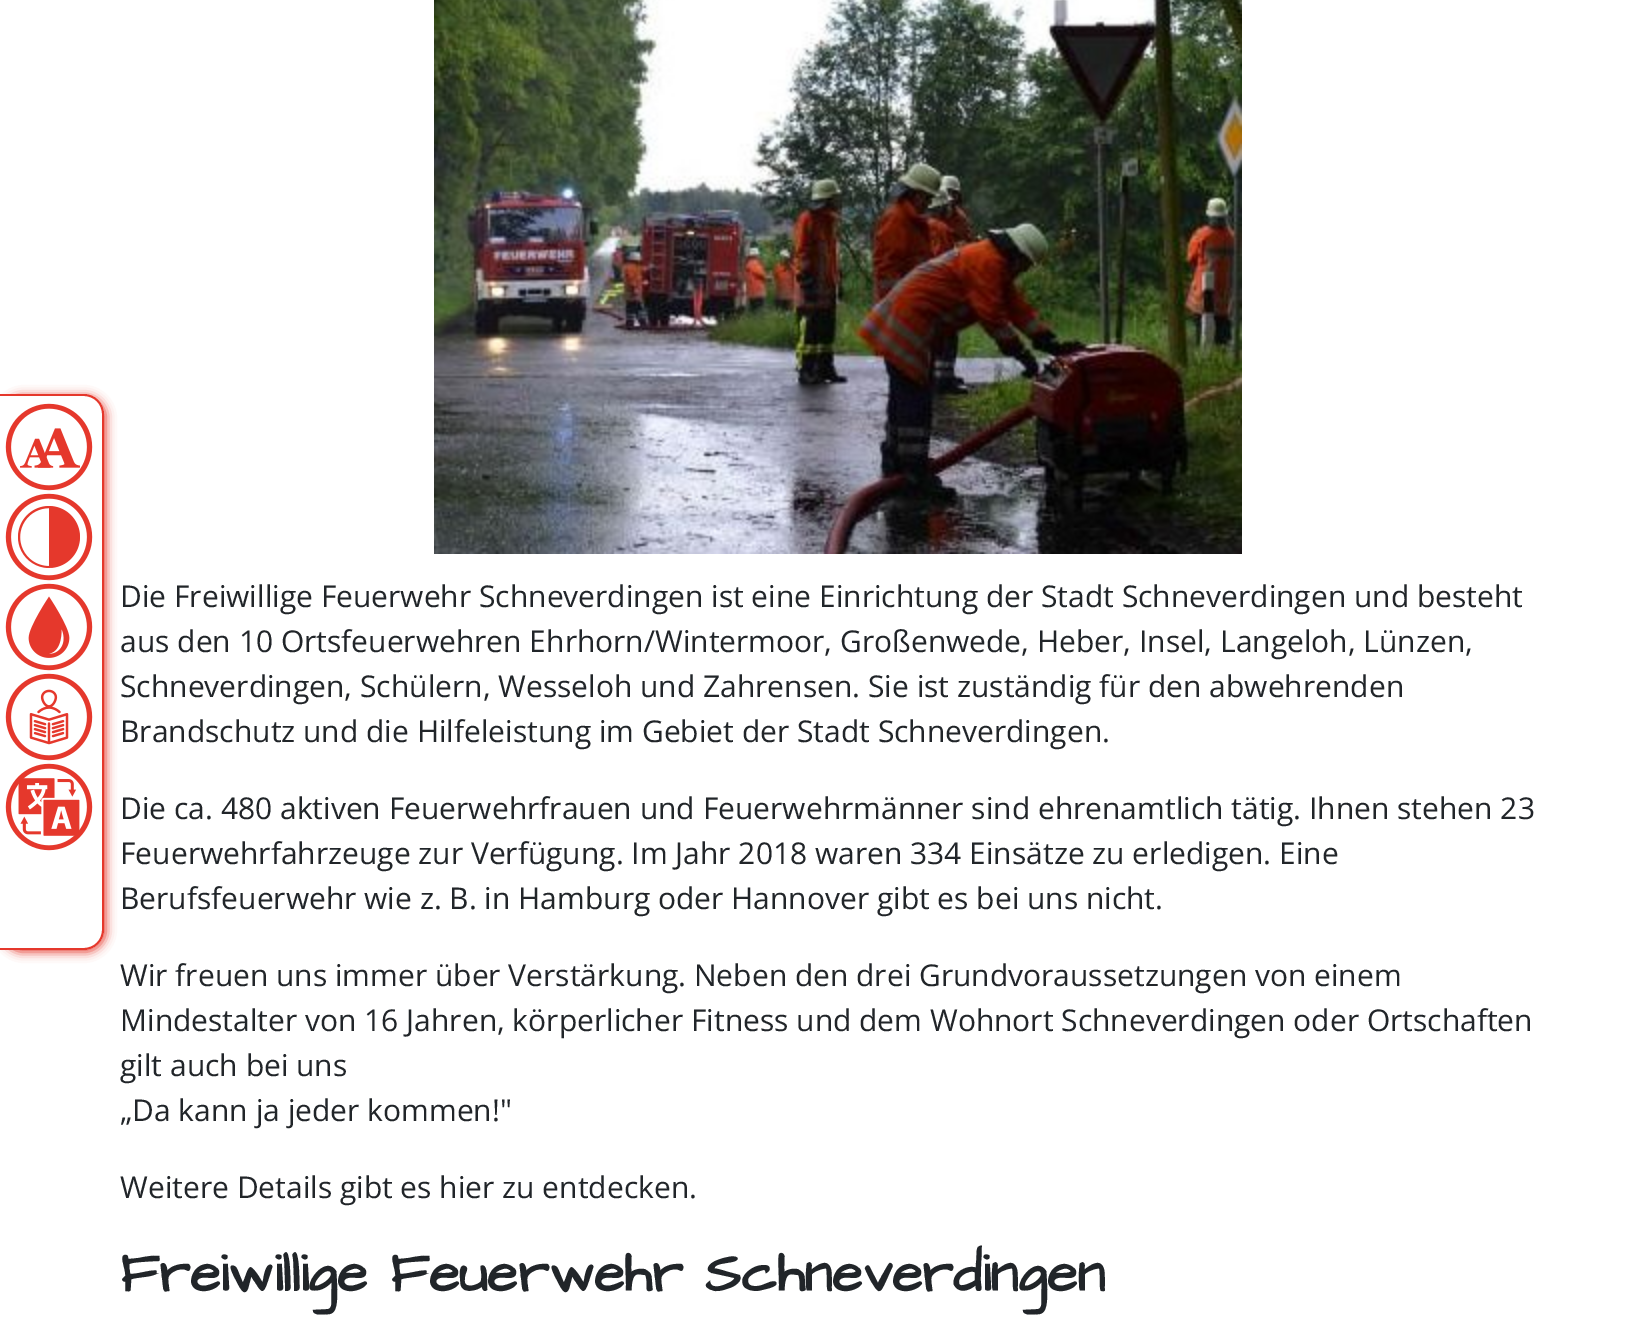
%!PS-Adobe-3.0
%%BoundingBox: 0 0 1645 1325
%%LanguageLevel: 3
%%Pages: 1
%%EndComments
%%BeginProlog
/setalpha { dup .setfillconstantalpha .setstrokeconstantalpha } def
/rrect { 5 dict begin { /r /h /w /y /x } { exch def } forall
  x r add y moveto x w add y 2 copy h add r arct x w add y h add x 1 index r arct
  x y h add x y r arct x y 2 copy exch w add exch r arct closepath end } def
/softshadow { 12 dict begin { /a /b /q /h /w /y /x } { exch def } forall gsave /was 0 def
  9 -2 -9 { dup b mul 4 div /e exch def 1 sub .425 mul 2.718 exch exp 1 add a .99 .min exch div /now exch def
    1 1 now sub 1 was sub div sub setalpha /was now def
    w h .min e 2 mul add 0 gt { x e sub y e sub w e 2 mul add h e 2 mul add
      q e add b .6 mul add w h .min 2 div e add .min 0 .max rrect fill } if } for grestore end } def
/drawimage { 5 dict begin { /h /w /y /x /name } { exch def } forall
  gsave x y translate w h scale
  w h 8 [w 0 0 h 0 0] name (r) file false 3 colorimage grestore end } def
%%EndProlog
%%BeginSetup
<< /PageSize [1645 1325] /PageUsesTransparency true >> setpagedevice
%%EndSetup
%%Page: 1 1
0 .pushpdf14devicefilter
0 1325 translate 1 -1 scale
4 setmiterlimit
1 setgray
0 0 1645 1325 rectfill
0.898 0.22 0.173 setrgbcolor
2 396 104 556 20 5 1 softshadow
1 setgray
newpath 0 394 moveto 84 394 lineto 95 394 104 403 104 414 curveto 104 930 lineto 104 941 95 950 84 950 curveto 0 950 lineto closepath fill
0.898 0.22 0.173 setrgbcolor
newpath 0 394 moveto 84 394 lineto 95 394 104 403 104 414 curveto 104 930 lineto 104 941 95 950 84 950 curveto 0 950 lineto closepath 0 396 moveto 84 396 lineto 94 396 102 404 102 414 curveto 102 930 lineto 102 940 94 948 84 948 curveto 0 948 lineto closepath eofill
(images/1.raw) 5 403 88 88 drawimage
(images/2.raw) 5 493 88 88 drawimage
(images/3.raw) 5 583 88 88 drawimage
(images/4.raw) 5 673 88 88 drawimage
(images/5.raw) 5 763 88 88 drawimage
(images/6.raw) 434 0 808 554 drawimage
/OpenSans-Regular [30 0 0 -30 0 0] selectfont
0.129 0.145 0.161 setrgbcolor
120 607 moveto (Die Freiwillige Feuerwehr Schneverdingen ist eine Einrichtung der Stadt Schneverdingen und besteht) show
120 652 moveto (aus den 10 Ortsfeuerwehren Ehrhorn/Wintermoor, Großenwede, Heber, Insel, Langeloh, Lünzen,) show
120 697 moveto (Schneverdingen, Schülern, Wesseloh und Zahrensen. Sie ist zuständig für den abwehrenden) show
120 742 moveto (Brandschutz und die Hilfeleistung im Gebiet der Stadt Schneverdingen.) show
120 819 moveto (Die ca. 480 aktiven Feuerwehrfrauen und Feuerwehrmänner sind ehrenamtlich tätig. Ihnen stehen 23) show
120 864 moveto (Feuerwehrfahrzeuge zur Verfügung. Im Jahr 2018 waren 334 Einsätze zu erledigen. Eine) show
120 909 moveto (Berufsfeuerwehr wie z. B. in Hamburg oder Hannover gibt es bei uns nicht.) show
120 986 moveto (Wir freuen uns immer über Verstärkung. Neben den drei Grundvoraussetzungen von einem) show
120 1031 moveto (Mindestalter von 16 Jahren, körperlicher Fitness und dem Wohnort Schneverdingen oder Ortschaften) show
120 1076 moveto (gilt auch bei uns) show
120 1121 moveto („Da kann ja jeder kommen!") show
120 1198 moveto (Weitere Details gibt es hier zu entdecken.) show
/ArchitectsDaughter-Bold [56 0 0 -56 0 0] selectfont
120 1291 moveto (Freiwillige Feuerwehr Schneverdingen) show
.poppdf14devicefilter showpage
%%EOF
